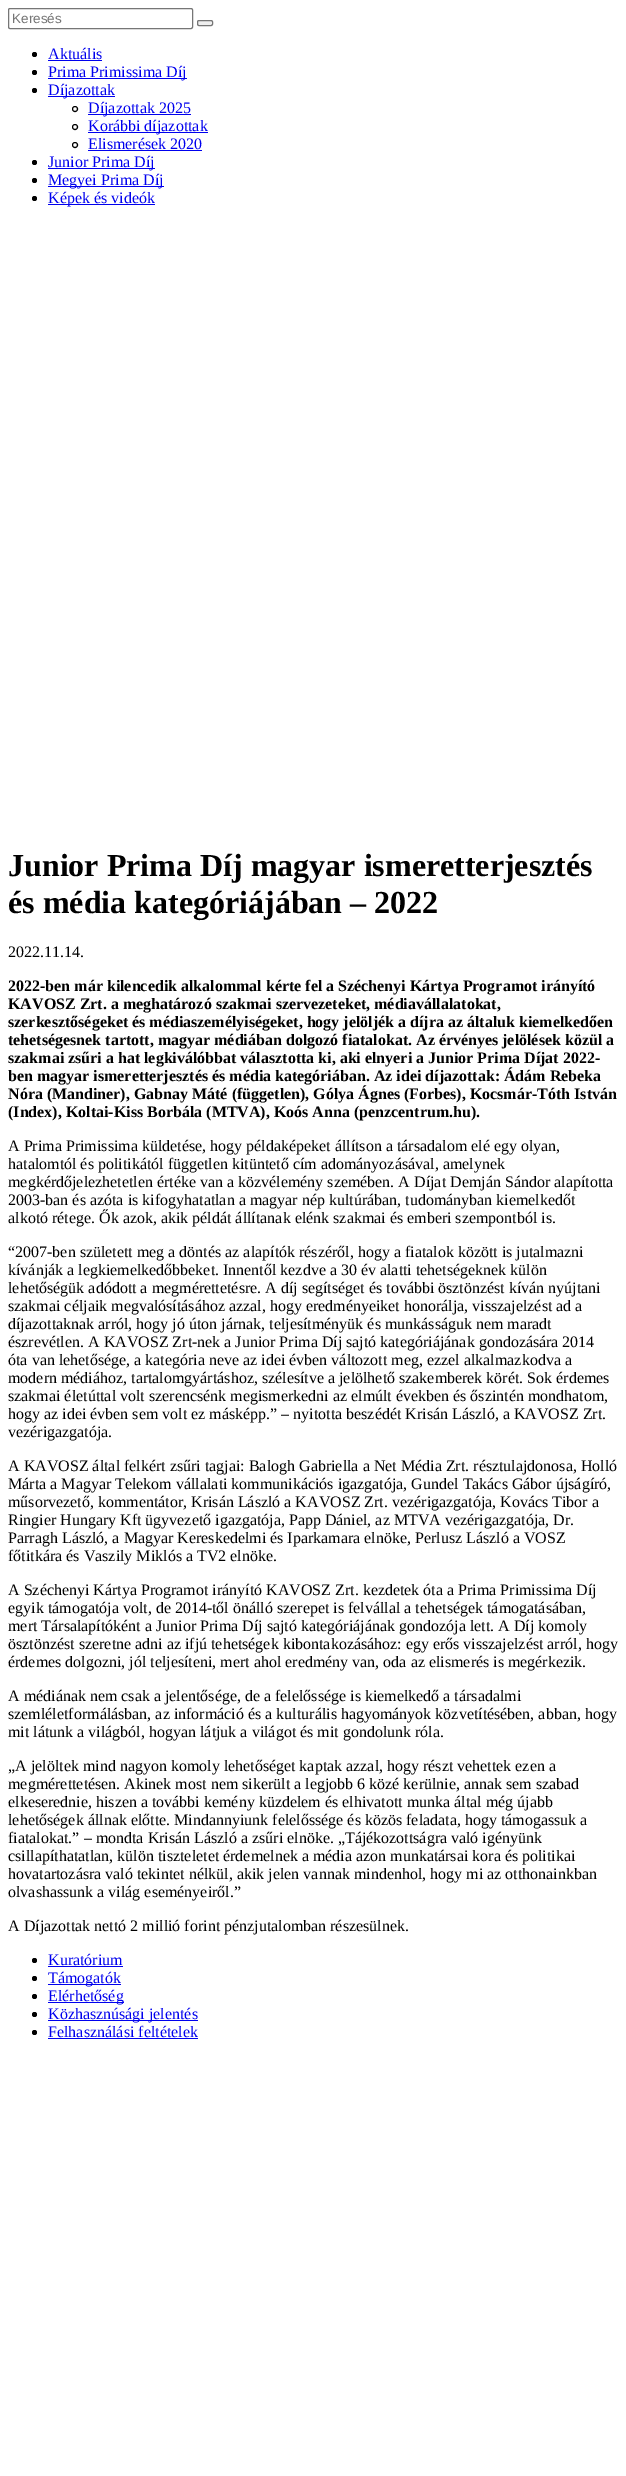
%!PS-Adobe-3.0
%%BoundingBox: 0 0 626 2476
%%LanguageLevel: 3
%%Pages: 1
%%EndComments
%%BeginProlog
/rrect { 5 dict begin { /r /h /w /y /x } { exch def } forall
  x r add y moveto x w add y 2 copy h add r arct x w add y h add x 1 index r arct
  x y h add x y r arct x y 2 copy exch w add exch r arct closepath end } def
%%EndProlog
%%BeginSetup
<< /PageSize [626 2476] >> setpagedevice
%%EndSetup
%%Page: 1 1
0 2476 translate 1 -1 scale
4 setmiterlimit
1 setgray
0 0 626 2476 rectfill
0.463 setgray
8.5 8.5 184 20 1.5 rrect stroke
0.937 setgray
197.5 20.5 15 5 1.5 rrect gsave fill grestore
0.463 setgray
stroke
0 setgray
newpath 34.5 54.5 2.5 0 360 arc closepath fill
0 0 0.933 setrgbcolor
48 60 54 1 rectfill
0 setgray
newpath 34.5 72.5 2.5 0 360 arc closepath fill
0 0 0.933 setrgbcolor
48 78 139 1 rectfill
0 setgray
newpath 34.5 90.5 2.5 0 360 arc closepath fill
0 0 0.933 setrgbcolor
48 96 67 1 rectfill
0 setgray
newpath 75 109 2.5 0 360 arc closepath stroke
0 0 0.933 setrgbcolor
88 114 103 1 rectfill
0 setgray
newpath 75 127 2.5 0 360 arc closepath stroke
0 0 0.933 setrgbcolor
88 132 120 1 rectfill
0 setgray
newpath 75 145 2.5 0 360 arc closepath stroke
0 0 0.933 setrgbcolor
88 150 114 1 rectfill
0 setgray
newpath 34.5 162.5 2.5 0 360 arc closepath fill
0 0 0.933 setrgbcolor
48 168 107 1 rectfill
0 setgray
newpath 34.5 180.5 2.5 0 360 arc closepath fill
0 0 0.933 setrgbcolor
48 186 116 1 rectfill
0 setgray
newpath 34.5 198.5 2.5 0 360 arc closepath fill
0 0 0.933 setrgbcolor
48 204 107 1 rectfill
0 setgray
newpath 34.5 1960.5 2.5 0 360 arc closepath fill
0 0 0.933 setrgbcolor
48 1966 75 1 rectfill
0 setgray
newpath 34.5 1978.5 2.5 0 360 arc closepath fill
0 0 0.933 setrgbcolor
48 1984 73 1 rectfill
0 setgray
newpath 34.5 1996.5 2.5 0 360 arc closepath fill
0 0 0.933 setrgbcolor
48 2002 76 1 rectfill
0 setgray
newpath 34.5 2014.5 2.5 0 360 arc closepath fill
0 0 0.933 setrgbcolor
48 2020 150 1 rectfill
0 setgray
newpath 34.5 2032.5 2.5 0 360 arc closepath fill
0 0 0.933 setrgbcolor
48 2038 150 1 rectfill
/LiberationSans-Regular [13.5 0 0 -13.5 0 0] selectfont
0.459 setgray
12 23 moveto (Keresés) show
/LiberationSerif-Regular [16 0 0 -16 0 0] selectfont
0 0 0.933 setrgbcolor
48 59 moveto (Aktuális) show
48 77 moveto (Prima Primissima Díj) show
48 95 moveto (Díjazottak) show
88 113 moveto (Díjazottak 2025) show
88 131 moveto (Korábbi díjazottak) show
88 149 moveto (Elismerések 2020) show
48 167 moveto (Junior Prima Díj) show
48 185 moveto (Megyei Prima Díj) show
48 203 moveto (Képek és videók) show
/LiberationSerif-Bold [32 0 0 -32 0 0] selectfont
0 setgray
8 876 moveto (Junior Prima Díj magyar ismeretterjesztés) show
8 913 moveto (és média kategóriájában – 2022) show
/LiberationSerif-Regular [16 0 0 -16 0 0] selectfont
8 957 moveto (2022.11.14.) show
/LiberationSerif-Bold [16 0 0 -16 0 0] selectfont
8 991 moveto (2022-ben már kilencedik alkalommal kérte fel a Széchenyi Kártya Programot irányító) show
8 1009 moveto (KAVOSZ Zrt. a meghatározó szakmai szervezeteket, médiavállalatokat,) show
8 1027 moveto (szerkesztőségeket és médiaszemélyiségeket, hogy jelöljék a díjra az általuk kiemelkedően) show
8 1045 moveto (tehetségesnek tartott, magyar médiában dolgozó fiatalokat. Az érvényes jelölések közül a) show
8 1063 moveto (szakmai zsűri a hat legkiválóbbat választotta ki, aki elnyeri a Junior Prima Díjat 2022-) show
8 1081 moveto (ben magyar ismeretterjesztés és média kategóriában. Az idei díjazottak: Ádám Rebeka) show
8 1099 moveto (Nóra \(Mandiner\), Gabnay Máté \(független\), Gólya Ágnes \(Forbes\), Kocsmár-Tóth István) show
8 1117 moveto (\(Index\), Koltai-Kiss Borbála \(MTVA\), Koós Anna \(penzcentrum.hu\).) show
/LiberationSerif-Regular [16 0 0 -16 0 0] selectfont
8 1151 moveto (A Prima Primissima küldetése, hogy példaképeket állítson a társadalom elé egy olyan,) show
8 1169 moveto (hatalomtól és politikától független kitüntető cím adományozásával, amelynek) show
8 1187 moveto (megkérdőjelezhetetlen értéke van a közvélemény szemében. A Díjat Demján Sándor alapította) show
8 1205 moveto (2003-ban és azóta is kifogyhatatlan a magyar nép kultúrában, tudományban kiemelkedőt) show
8 1223 moveto (alkotó rétege. Ők azok, akik példát állítanak elénk szakmai és emberi szempontból is.) show
8 1257 moveto (“2007-ben született meg a döntés az alapítók részéről, hogy a fiatalok között is jutalmazni) show
8 1275 moveto (kívánják a legkiemelkedőbbeket. Innentől kezdve a 30 év alatti tehetségeknek külön) show
8 1293 moveto (lehetőségük adódott a megmérettetésre. A díj segítséget és további ösztönzést kíván nyújtani) show
8 1311 moveto (szakmai céljaik megvalósításához azzal, hogy eredményeiket honorálja, visszajelzést ad a) show
8 1329 moveto (díjazottaknak arról, hogy jó úton járnak, teljesítményük és munkásságuk nem maradt) show
8 1347 moveto (észrevétlen. A KAVOSZ Zrt-nek a Junior Prima Díj sajtó kategóriájának gondozására 2014) show
8 1365 moveto (óta van lehetősége, a kategória neve az idei évben változott meg, ezzel alkalmazkodva a) show
8 1383 moveto (modern médiához, tartalomgyártáshoz, szélesítve a jelölhető szakemberek körét. Sok érdemes) show
8 1401 moveto (szakmai életúttal volt szerencsénk megismerkedni az elmúlt években és őszintén mondhatom,) show
8 1419 moveto (hogy az idei évben sem volt ez másképp.” – nyitotta beszédét Krisán László, a KAVOSZ Zrt.) show
8 1437 moveto (vezérigazgatója.) show
8 1471 moveto (A KAVOSZ által felkért zsűri tagjai: Balogh Gabriella a Net Média Zrt. résztulajdonosa, Holló) show
8 1489 moveto (Márta a Magyar Telekom vállalati kommunikációs igazgatója, Gundel Takács Gábor újságíró,) show
8 1507 moveto (műsorvezető, kommentátor, Krisán László a KAVOSZ Zrt. vezérigazgatója, Kovács Tibor a) show
8 1525 moveto (Ringier Hungary Kft ügyvezető igazgatója, Papp Dániel, az MTVA vezérigazgatója, Dr.) show
8 1543 moveto (Parragh László, a Magyar Kereskedelmi és Iparkamara elnöke, Perlusz László a VOSZ) show
8 1561 moveto (főtitkára és Vaszily Miklós a TV2 elnöke.) show
8 1595 moveto (A Széchenyi Kártya Programot irányító KAVOSZ Zrt. kezdetek óta a Prima Primissima Díj) show
8 1613 moveto (egyik támogatója volt, de 2014-től önálló szerepet is felvállal a tehetségek támogatásában,) show
8 1631 moveto (mert Társalapítóként a Junior Prima Díj sajtó kategóriájának gondozója lett. A Díj komoly) show
8 1649 moveto (ösztönzést szeretne adni az ifjú tehetségek kibontakozásához: egy erős visszajelzést arról, hogy) show
8 1667 moveto (érdemes dolgozni, jól teljesíteni, mert ahol eredmény van, oda az elismerés is megérkezik.) show
8 1701 moveto (A médiának nem csak a jelentősége, de a felelőssége is kiemelkedő a társadalmi) show
8 1719 moveto (szemléletformálásban, az információ és a kulturális hagyományok közvetítésében, abban, hogy) show
8 1737 moveto (mit látunk a világból, hogyan látjuk a világot és mit gondolunk róla.) show
8 1771 moveto („A jelöltek mind nagyon komoly lehetőséget kaptak azzal, hogy részt vehettek ezen a) show
8 1789 moveto (megmérettetésen. Akinek most nem sikerült a legjobb 6 közé kerülnie, annak sem szabad) show
8 1807 moveto (elkeserednie, hiszen a további kemény küzdelem és elhivatott munka által még újabb) show
8 1825 moveto (lehetőségek állnak előtte. Mindannyiunk felelőssége és közös feladata, hogy támogassuk a) show
8 1843 moveto (fiatalokat.” – mondta Krisán László a zsűri elnöke. „Tájékozottságra való igényünk) show
8 1861 moveto (csillapíthatatlan, külön tiszteletet érdemelnek a média azon munkatársai kora és politikai) show
8 1879 moveto (hovatartozásra való tekintet nélkül, akik jelen vannak mindenhol, hogy mi az otthonainkban) show
8 1897 moveto (olvashassunk a világ eseményeiről.”) show
8 1931 moveto (A Díjazottak nettó 2 millió forint pénzjutalomban részesülnek.) show
0 0 0.933 setrgbcolor
48 1965 moveto (Kuratórium) show
48 1983 moveto (Támogatók) show
48 2001 moveto (Elérhetőség) show
48 2019 moveto (Közhasznúsági jelentés) show
48 2037 moveto (Felhasználási feltételek) show
showpage
%%EOF
